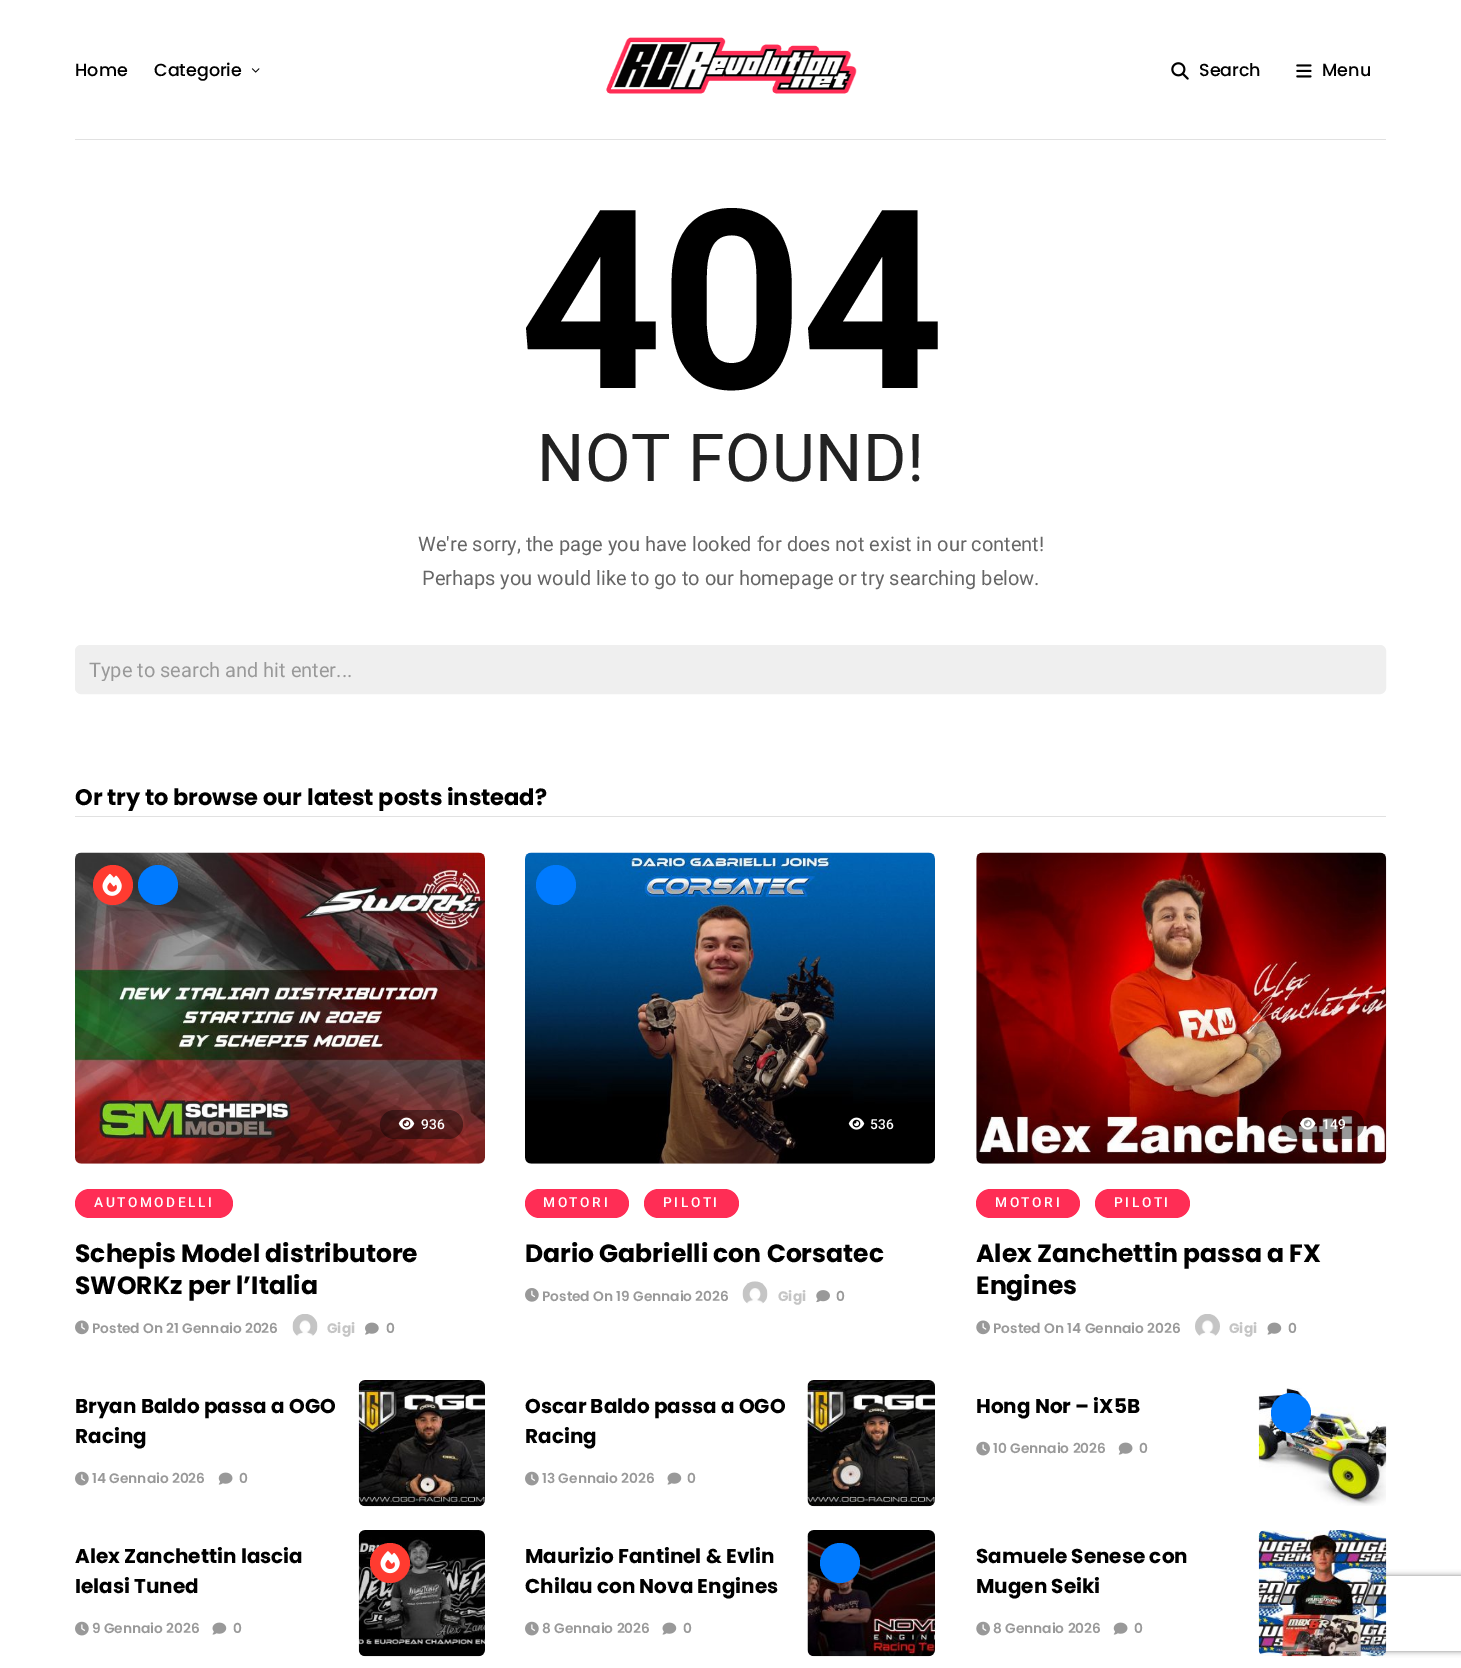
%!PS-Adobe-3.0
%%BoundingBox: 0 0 1461 1668
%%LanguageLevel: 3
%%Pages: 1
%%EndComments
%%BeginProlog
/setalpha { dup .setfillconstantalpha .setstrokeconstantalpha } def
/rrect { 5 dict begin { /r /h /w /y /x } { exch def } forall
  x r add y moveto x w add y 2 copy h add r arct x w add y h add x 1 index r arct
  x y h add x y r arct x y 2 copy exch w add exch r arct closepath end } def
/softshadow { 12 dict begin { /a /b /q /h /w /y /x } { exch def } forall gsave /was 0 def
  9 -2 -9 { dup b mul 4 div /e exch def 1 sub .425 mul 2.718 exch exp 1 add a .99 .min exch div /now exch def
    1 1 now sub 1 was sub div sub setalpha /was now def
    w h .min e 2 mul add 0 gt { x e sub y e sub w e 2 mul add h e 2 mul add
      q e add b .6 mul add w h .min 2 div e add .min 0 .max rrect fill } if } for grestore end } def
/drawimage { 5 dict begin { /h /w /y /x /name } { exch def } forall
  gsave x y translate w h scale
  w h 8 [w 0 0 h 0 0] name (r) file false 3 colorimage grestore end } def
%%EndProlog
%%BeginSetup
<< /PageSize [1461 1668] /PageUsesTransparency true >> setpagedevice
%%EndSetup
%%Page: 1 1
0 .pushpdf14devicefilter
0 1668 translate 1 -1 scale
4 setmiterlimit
1 setgray
0 0 1461 1668 rectfill
(images/1.raw) 606 37 251 57 drawimage
0.882 setgray
75 139 1311 1 rectfill
(images/2.raw) 251 68 9 5 drawimage
(images/3.raw) 1171 62 18 18 drawimage
(images/4.raw) 1296 64 16 14 drawimage
0.937 setgray
75.5 645.5 1310 48 5.5 rrect gsave fill grestore
stroke
0.882 setgray
75 816 1311 1 rectfill
(images/5.raw) 75 852 410 312 drawimage
1 0.231 0.188 setrgbcolor
newpath 113 885 20 0 360 arc closepath fill
(images/6.raw) 102 873 20 23 drawimage
0 0.478 0.996 setrgbcolor
newpath 158 885 20 0 360 arc closepath fill
0.4 setalpha
0 setgray
380 1110 83 29 14.5 rrect fill
1 setalpha
(images/7.raw) 398 1117 17 13 drawimage
1 0.176 0.333 setrgbcolor
75 1189 158 29 14.5 rrect fill
(images/8.raw) 75 1320 14 15 drawimage
(images/9.raw) 292 1314 26 22 drawimage
(images/10.raw) 365 1322 14 13 drawimage
(images/11.raw) 525 852 410 312 drawimage
0 0.478 0.996 setrgbcolor
newpath 556 885 20 0 360 arc closepath fill
(images/12.raw) 848 1117 17 13 drawimage
1 0.176 0.333 setrgbcolor
525 1189 104 29 14.5 rrect fill
644 1189 95 29 14.5 rrect fill
(images/13.raw) 525 1288 14 14 drawimage
(images/14.raw) 742 1281 26 23 drawimage
(images/15.raw) 816 1290 14 13 drawimage
(images/16.raw) 976 852 411 312 drawimage
0.4 setalpha
0 setgray
1281 1110 83 29 14.5 rrect fill
1 setalpha
(images/17.raw) 1300 1117 16 13 drawimage
1 0.176 0.333 setrgbcolor
976 1189 104 29 14.5 rrect fill
1095 1189 95 29 14.5 rrect fill
(images/18.raw) 976 1320 14 15 drawimage
(images/19.raw) 1195 1314 25 22 drawimage
(images/20.raw) 1267 1322 15 13 drawimage
(images/21.raw) 75 1471 14 15 drawimage
(images/22.raw) 218 1472 15 13 drawimage
(images/23.raw) 358 1380 127 127 drawimage
(images/21.raw) 525 1471 14 15 drawimage
(images/20.raw) 667 1472 15 13 drawimage
(images/24.raw) 807 1380 128 127 drawimage
(images/25.raw) 976 1441 14 15 drawimage
(images/22.raw) 1118 1442 15 13 drawimage
(images/26.raw) 1258 1388 129 118 drawimage
0 0.478 0.996 setrgbcolor
newpath 1291 1413 20 0 360 arc closepath fill
(images/21.raw) 75 1621 14 15 drawimage
(images/20.raw) 212 1622 15 13 drawimage
(images/27.raw) 358 1530 127 127 drawimage
1 0.231 0.188 setrgbcolor
newpath 390 1563 20 0 360 arc closepath fill
(images/28.raw) 380 1551 20 23 drawimage
(images/21.raw) 525 1621 14 15 drawimage
(images/20.raw) 662 1622 15 13 drawimage
(images/29.raw) 807 1530 128 127 drawimage
0 0.478 0.996 setrgbcolor
newpath 840 1563 20 0 360 arc closepath fill
(images/25.raw) 976 1621 14 15 drawimage
(images/22.raw) 1113 1622 15 13 drawimage
(images/30.raw) 1258 1530 129 127 drawimage
gsave
newpath 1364 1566 moveto 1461 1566 lineto 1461 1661 lineto 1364 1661 lineto closepath 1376.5 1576 moveto 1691.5 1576 lineto 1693 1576 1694 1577 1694 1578.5 curveto 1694 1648.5 lineto 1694 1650 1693 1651 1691.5 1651 curveto 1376.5 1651 lineto 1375 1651 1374 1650 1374 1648.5 curveto 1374 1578.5 lineto 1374 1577 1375 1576 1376.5 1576 curveto closepath eoclip newpath
0.502 setgray
1374 1576 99 75 2.5 3 1 softshadow
grestore
/Poppins-Medium [17.5 0 0 -17.5 0 0] selectfont
0 setgray
75 76 moveto (Home) show
154 76 moveto (Categorie) show
1199 76 moveto (Search) show
1322 76 moveto (Menu) show
/Roboto-Bold [250 0 0 -250 0 0] selectfont
519 388 moveto -2.5 0 (404) ashow
/Roboto-Regular [66.25 0 0 -66.25 0 0] selectfont
0.133 setgray
537 481 moveto 0.6 0 (NOT FOUND!) ashow
/Roboto-Regular [20 0 0 -20 0 0] selectfont
0.4 setgray
418 551 moveto (We're sorry, the page you have looked for does not exist in our content!) show
422 585 moveto (Perhaps you would like to go to our homepage or try searching below.) show
gsave
89 658 1284 23 rectclip
0.6 setgray
89 677 moveto (Type to search and hit enter...) show
grestore
/Poppins-Bold [22.5 0 0 -22.5 0 0] selectfont
0 setgray
75 805 moveto (Or try to browse our latest posts instead?) show
/Roboto-Medium [13.75 0 0 -13.75 0 0] selectfont
1 setgray
421 1129 moveto (936) show
94 1207 moveto 2.5 0 (AUTOMODELLI) ashow
/Poppins-Bold [25 0 0 -25 0 0] selectfont
0 setgray
75 1262 moveto (Schepis Model distributore) show
75 1294 moveto (SWORKz per l’Italia) show
/Poppins-SemiBold [13.75 0 0 -13.75 0 0] selectfont
0.6 setgray
92 1333 moveto (Posted On 21 Gennaio 2026) show
/Poppins-Bold [13.75 0 0 -13.75 0 0] selectfont
0.773 setgray
327 1333 moveto (Gigi) show
/Poppins-SemiBold [13.75 0 0 -13.75 0 0] selectfont
0.6 setgray
386 1333 moveto (0) show
/Roboto-Medium [13.75 0 0 -13.75 0 0] selectfont
1 setgray
870 1129 moveto (536) show
543 1207 moveto 2.5 0 (MOTORI) ashow
663 1207 moveto 2.5 0 (PILOTI) ashow
/Poppins-Bold [25 0 0 -25 0 0] selectfont
0 setgray
525 1262 moveto (Dario Gabrielli con Corsatec) show
/Poppins-SemiBold [13.75 0 0 -13.75 0 0] selectfont
0.6 setgray
542 1301 moveto (Posted On 19 Gennaio 2026) show
/Poppins-Bold [13.75 0 0 -13.75 0 0] selectfont
0.773 setgray
778 1301 moveto (Gigi) show
/Poppins-SemiBold [13.75 0 0 -13.75 0 0] selectfont
0.6 setgray
836 1301 moveto (0) show
/Roboto-Medium [13.75 0 0 -13.75 0 0] selectfont
1 setgray
1322 1129 moveto (149) show
995 1207 moveto 2.5 0 (MOTORI) ashow
1114 1207 moveto 2.5 0 (PILOTI) ashow
/Poppins-Bold [25 0 0 -25 0 0] selectfont
0 setgray
976 1262 moveto (Alex Zanchettin passa a FX) show
976 1294 moveto (Engines) show
/Poppins-SemiBold [13.75 0 0 -13.75 0 0] selectfont
0.6 setgray
993 1333 moveto (Posted On 14 Gennaio 2026) show
/Poppins-Bold [13.75 0 0 -13.75 0 0] selectfont
0.773 setgray
1229 1333 moveto (Gigi) show
/Poppins-SemiBold [13.75 0 0 -13.75 0 0] selectfont
0.6 setgray
1288 1333 moveto (0) show
/Poppins-Bold [20 0 0 -20 0 0] selectfont
0 setgray
75 1413 moveto (Bryan Baldo passa a OGO) show
75 1443 moveto (Racing) show
/Poppins-SemiBold [13.75 0 0 -13.75 0 0] selectfont
0.6 setgray
92 1483 moveto (14 Gennaio 2026) show
239 1483 moveto (0) show
/Poppins-Bold [20 0 0 -20 0 0] selectfont
0 setgray
525 1413 moveto (Oscar Baldo passa a OGO) show
525 1443 moveto (Racing) show
/Poppins-SemiBold [13.75 0 0 -13.75 0 0] selectfont
0.6 setgray
542 1483 moveto (13 Gennaio 2026) show
687 1483 moveto (0) show
/Poppins-Bold [20 0 0 -20 0 0] selectfont
0 setgray
976 1413 moveto (Hong Nor – iX5B) show
/Poppins-SemiBold [13.75 0 0 -13.75 0 0] selectfont
0.6 setgray
993 1453 moveto (10 Gennaio 2026) show
1139 1453 moveto (0) show
/Poppins-Bold [20 0 0 -20 0 0] selectfont
0 setgray
75 1563 moveto (Alex Zanchettin lascia) show
75 1593 moveto (Ielasi Tuned) show
/Poppins-SemiBold [13.75 0 0 -13.75 0 0] selectfont
0.6 setgray
92 1633 moveto (9 Gennaio 2026) show
233 1633 moveto (0) show
/Poppins-Bold [20 0 0 -20 0 0] selectfont
0 setgray
525 1563 moveto (Maurizio Fantinel & Evlin) show
525 1593 moveto (Chilau con Nova Engines) show
/Poppins-SemiBold [13.75 0 0 -13.75 0 0] selectfont
0.6 setgray
542 1633 moveto (8 Gennaio 2026) show
683 1633 moveto (0) show
/Poppins-Bold [20 0 0 -20 0 0] selectfont
0 setgray
976 1563 moveto (Samuele Senese con) show
976 1593 moveto (Mugen Seiki) show
/Poppins-SemiBold [13.75 0 0 -13.75 0 0] selectfont
0.6 setgray
993 1633 moveto (8 Gennaio 2026) show
1134 1633 moveto (0) show
.poppdf14devicefilter showpage
%%EOF
